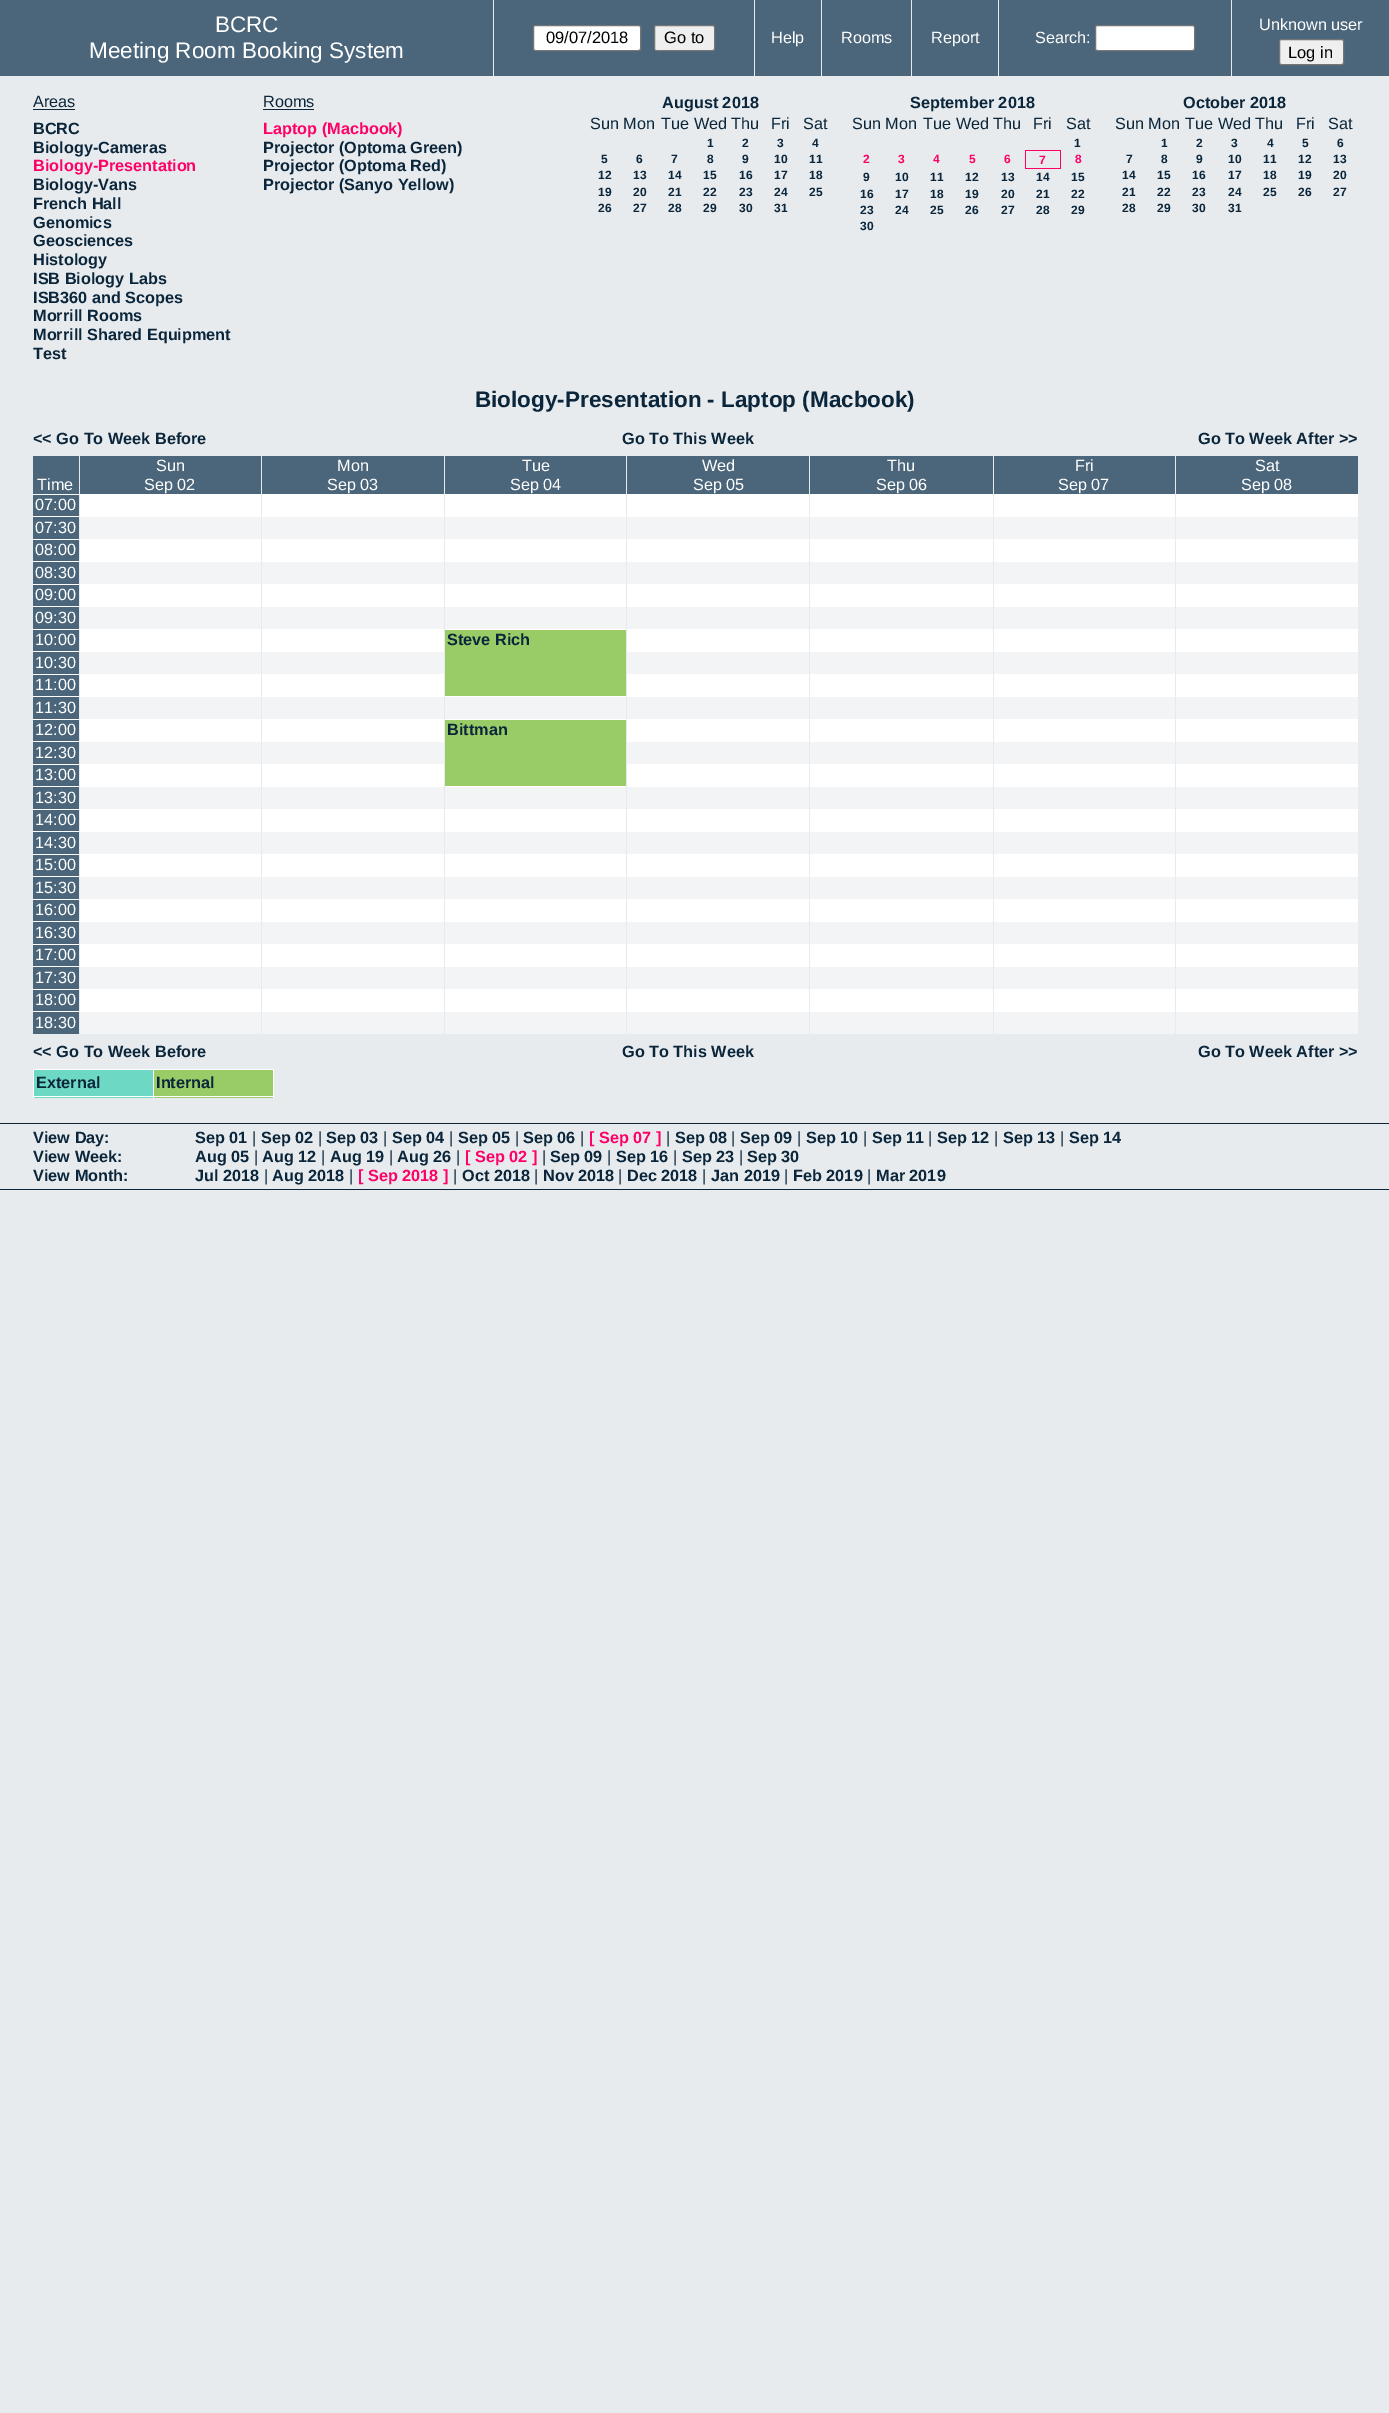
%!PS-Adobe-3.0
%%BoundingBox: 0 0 1389 2413
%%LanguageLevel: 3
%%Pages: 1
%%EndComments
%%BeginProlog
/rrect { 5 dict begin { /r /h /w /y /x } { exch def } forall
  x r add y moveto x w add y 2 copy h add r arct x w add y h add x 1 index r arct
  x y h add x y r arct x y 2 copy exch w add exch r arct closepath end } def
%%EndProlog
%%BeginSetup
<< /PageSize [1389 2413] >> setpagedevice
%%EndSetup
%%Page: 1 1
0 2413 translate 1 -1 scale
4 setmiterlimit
0.906 0.922 0.933 setrgbcolor
0 0 1389 2413 rectfill
0.294 0.4 0.482 setrgbcolor
0 0 1389 76 rectfill
0.906 0.922 0.933 setrgbcolor
493 0 1 76 rectfill
1 setgray
533.5 25.5 107 25 2 rrect gsave fill grestore
0.463 setgray
stroke
0.937 setgray
654.5 25.5 60 25 2 rrect gsave fill grestore
0.463 setgray
stroke
0.906 0.922 0.933 setrgbcolor
754 0 1 76 rectfill
821 0 1 76 rectfill
911 0 1 76 rectfill
998 0 1 76 rectfill
1 setgray
1095.5 25.5 99 25 2 rrect gsave fill grestore
0.463 setgray
stroke
0.906 0.922 0.933 setrgbcolor
1231 0 1 76 rectfill
0.937 setgray
1279.5 39.5 64 25 2 rrect gsave fill grestore
0.463 setgray
stroke
0.043 0.149 0.231 setrgbcolor
33 109 42 1 rectfill
263 109 51 1 rectfill
1 0 0.4 setrgbcolor
1025 150 36 1 rectfill
1060 150 1 19 rectfill
1025 168 36 1 rectfill
1025 150 1 19 rectfill
0.294 0.4 0.482 setrgbcolor
33 456 46 38 rectfill
80 456 181 38 rectfill
262 456 182 38 rectfill
445 456 181 38 rectfill
627 456 182 38 rectfill
810 456 183 38 rectfill
994 456 181 38 rectfill
1176 456 182 38 rectfill
33 495 46 21 rectfill
1 setgray
33 494 46 1 rectfill
80 494 181 22 rectfill
262 494 182 22 rectfill
445 494 181 22 rectfill
627 494 182 22 rectfill
810 494 183 22 rectfill
994 494 181 22 rectfill
1176 494 182 22 rectfill
0.294 0.4 0.482 setrgbcolor
33 517 46 22 rectfill
1 setgray
33 516 1325 1 rectfill
0.949 0.957 0.965 setrgbcolor
80 517 181 22 rectfill
0.906 0.922 0.933 setrgbcolor
79 516 1 1 rectfill
0.949 0.957 0.965 setrgbcolor
262 517 182 22 rectfill
0.906 0.922 0.933 setrgbcolor
261 516 1 1 rectfill
0.949 0.957 0.965 setrgbcolor
445 517 181 22 rectfill
0.906 0.922 0.933 setrgbcolor
444 516 1 1 rectfill
0.949 0.957 0.965 setrgbcolor
627 517 182 22 rectfill
0.906 0.922 0.933 setrgbcolor
626 516 1 1 rectfill
0.949 0.957 0.965 setrgbcolor
810 517 183 22 rectfill
0.906 0.922 0.933 setrgbcolor
809 516 1 1 rectfill
0.949 0.957 0.965 setrgbcolor
994 517 181 22 rectfill
0.906 0.922 0.933 setrgbcolor
993 516 1 1 rectfill
0.949 0.957 0.965 setrgbcolor
1176 517 182 22 rectfill
0.906 0.922 0.933 setrgbcolor
1175 516 1 1 rectfill
0.294 0.4 0.482 setrgbcolor
33 540 46 21 rectfill
1 setgray
33 539 46 1 rectfill
80 539 181 22 rectfill
262 539 182 22 rectfill
445 539 181 22 rectfill
627 539 182 22 rectfill
810 539 183 22 rectfill
994 539 181 22 rectfill
1176 539 182 22 rectfill
0.294 0.4 0.482 setrgbcolor
33 562 46 22 rectfill
1 setgray
33 561 1325 1 rectfill
0.949 0.957 0.965 setrgbcolor
80 562 181 22 rectfill
0.906 0.922 0.933 setrgbcolor
79 561 1 1 rectfill
0.949 0.957 0.965 setrgbcolor
262 562 182 22 rectfill
0.906 0.922 0.933 setrgbcolor
261 561 1 1 rectfill
0.949 0.957 0.965 setrgbcolor
445 562 181 22 rectfill
0.906 0.922 0.933 setrgbcolor
444 561 1 1 rectfill
0.949 0.957 0.965 setrgbcolor
627 562 182 22 rectfill
0.906 0.922 0.933 setrgbcolor
626 561 1 1 rectfill
0.949 0.957 0.965 setrgbcolor
810 562 183 22 rectfill
0.906 0.922 0.933 setrgbcolor
809 561 1 1 rectfill
0.949 0.957 0.965 setrgbcolor
994 562 181 22 rectfill
0.906 0.922 0.933 setrgbcolor
993 561 1 1 rectfill
0.949 0.957 0.965 setrgbcolor
1176 562 182 22 rectfill
0.906 0.922 0.933 setrgbcolor
1175 561 1 1 rectfill
0.294 0.4 0.482 setrgbcolor
33 585 46 21 rectfill
1 setgray
33 584 46 1 rectfill
80 584 181 22 rectfill
262 584 182 22 rectfill
445 584 181 22 rectfill
627 584 182 22 rectfill
810 584 183 22 rectfill
994 584 181 22 rectfill
1176 584 182 22 rectfill
0.294 0.4 0.482 setrgbcolor
33 607 46 22 rectfill
1 setgray
33 606 1325 1 rectfill
0.949 0.957 0.965 setrgbcolor
80 607 181 22 rectfill
0.906 0.922 0.933 setrgbcolor
79 606 1 1 rectfill
0.949 0.957 0.965 setrgbcolor
262 607 182 22 rectfill
0.906 0.922 0.933 setrgbcolor
261 606 1 1 rectfill
0.949 0.957 0.965 setrgbcolor
445 607 181 22 rectfill
0.906 0.922 0.933 setrgbcolor
444 606 1 1 rectfill
0.949 0.957 0.965 setrgbcolor
627 607 182 22 rectfill
0.906 0.922 0.933 setrgbcolor
626 606 1 1 rectfill
0.949 0.957 0.965 setrgbcolor
810 607 183 22 rectfill
0.906 0.922 0.933 setrgbcolor
809 606 1 1 rectfill
0.949 0.957 0.965 setrgbcolor
994 607 181 22 rectfill
0.906 0.922 0.933 setrgbcolor
993 606 1 1 rectfill
0.949 0.957 0.965 setrgbcolor
1176 607 182 22 rectfill
0.906 0.922 0.933 setrgbcolor
1175 606 1 1 rectfill
0.294 0.4 0.482 setrgbcolor
33 630 46 21 rectfill
1 setgray
33 629 46 1 rectfill
80 629 181 22 rectfill
262 629 182 22 rectfill
0.6 0.8 0.4 setrgbcolor
445 630 181 66 rectfill
1 setgray
444 629 182 1 rectfill
0.906 0.922 0.933 setrgbcolor
444 629 1 1 rectfill
1 setgray
627 629 182 22 rectfill
810 629 183 22 rectfill
994 629 181 22 rectfill
1176 629 182 22 rectfill
0.949 0.957 0.965 setrgbcolor
80 652 181 22 rectfill
1 setgray
33 651 411 1 rectfill
0.906 0.922 0.933 setrgbcolor
79 651 1 1 rectfill
0.949 0.957 0.965 setrgbcolor
262 652 182 22 rectfill
0.906 0.922 0.933 setrgbcolor
261 651 1 1 rectfill
0.949 0.957 0.965 setrgbcolor
627 652 182 22 rectfill
1 setgray
626 651 732 1 rectfill
0.906 0.922 0.933 setrgbcolor
626 651 1 1 rectfill
0.294 0.4 0.482 setrgbcolor
33 652 46 22 rectfill
0.949 0.957 0.965 setrgbcolor
810 652 183 22 rectfill
0.906 0.922 0.933 setrgbcolor
809 651 1 1 rectfill
0.949 0.957 0.965 setrgbcolor
994 652 181 22 rectfill
0.906 0.922 0.933 setrgbcolor
993 651 1 1 rectfill
0.949 0.957 0.965 setrgbcolor
1176 652 182 22 rectfill
0.906 0.922 0.933 setrgbcolor
1175 651 1 1 rectfill
0.294 0.4 0.482 setrgbcolor
33 675 46 21 rectfill
1 setgray
33 674 46 1 rectfill
80 674 181 22 rectfill
262 674 182 22 rectfill
627 674 182 22 rectfill
810 674 183 22 rectfill
994 674 181 22 rectfill
1176 674 182 22 rectfill
0.294 0.4 0.482 setrgbcolor
33 697 46 22 rectfill
1 setgray
33 696 1325 1 rectfill
0.949 0.957 0.965 setrgbcolor
80 697 181 22 rectfill
0.906 0.922 0.933 setrgbcolor
79 696 1 1 rectfill
0.949 0.957 0.965 setrgbcolor
262 697 182 22 rectfill
0.906 0.922 0.933 setrgbcolor
261 696 1 1 rectfill
0.949 0.957 0.965 setrgbcolor
445 697 181 22 rectfill
0.906 0.922 0.933 setrgbcolor
444 696 1 1 rectfill
0.949 0.957 0.965 setrgbcolor
627 697 182 22 rectfill
0.906 0.922 0.933 setrgbcolor
626 696 1 1 rectfill
0.949 0.957 0.965 setrgbcolor
810 697 183 22 rectfill
0.906 0.922 0.933 setrgbcolor
809 696 1 1 rectfill
0.949 0.957 0.965 setrgbcolor
994 697 181 22 rectfill
0.906 0.922 0.933 setrgbcolor
993 696 1 1 rectfill
0.949 0.957 0.965 setrgbcolor
1176 697 182 22 rectfill
0.906 0.922 0.933 setrgbcolor
1175 696 1 1 rectfill
0.294 0.4 0.482 setrgbcolor
33 720 46 21 rectfill
1 setgray
33 719 46 1 rectfill
80 719 181 22 rectfill
262 719 182 22 rectfill
0.6 0.8 0.4 setrgbcolor
445 720 181 66 rectfill
1 setgray
444 719 182 1 rectfill
0.906 0.922 0.933 setrgbcolor
444 719 1 1 rectfill
1 setgray
627 719 182 22 rectfill
810 719 183 22 rectfill
994 719 181 22 rectfill
1176 719 182 22 rectfill
0.949 0.957 0.965 setrgbcolor
80 742 181 22 rectfill
1 setgray
33 741 411 1 rectfill
0.906 0.922 0.933 setrgbcolor
79 741 1 1 rectfill
0.949 0.957 0.965 setrgbcolor
262 742 182 22 rectfill
0.906 0.922 0.933 setrgbcolor
261 741 1 1 rectfill
0.949 0.957 0.965 setrgbcolor
627 742 182 22 rectfill
1 setgray
626 741 732 1 rectfill
0.906 0.922 0.933 setrgbcolor
626 741 1 1 rectfill
0.294 0.4 0.482 setrgbcolor
33 742 46 22 rectfill
0.949 0.957 0.965 setrgbcolor
810 742 183 22 rectfill
0.906 0.922 0.933 setrgbcolor
809 741 1 1 rectfill
0.949 0.957 0.965 setrgbcolor
994 742 181 22 rectfill
0.906 0.922 0.933 setrgbcolor
993 741 1 1 rectfill
0.949 0.957 0.965 setrgbcolor
1176 742 182 22 rectfill
0.906 0.922 0.933 setrgbcolor
1175 741 1 1 rectfill
0.294 0.4 0.482 setrgbcolor
33 765 46 21 rectfill
1 setgray
33 764 46 1 rectfill
80 764 181 22 rectfill
262 764 182 22 rectfill
627 764 182 22 rectfill
810 764 183 22 rectfill
994 764 181 22 rectfill
1176 764 182 22 rectfill
0.294 0.4 0.482 setrgbcolor
33 787 46 22 rectfill
1 setgray
33 786 1325 1 rectfill
0.949 0.957 0.965 setrgbcolor
80 787 181 22 rectfill
0.906 0.922 0.933 setrgbcolor
79 786 1 1 rectfill
0.949 0.957 0.965 setrgbcolor
262 787 182 22 rectfill
0.906 0.922 0.933 setrgbcolor
261 786 1 1 rectfill
0.949 0.957 0.965 setrgbcolor
445 787 181 22 rectfill
0.906 0.922 0.933 setrgbcolor
444 786 1 1 rectfill
0.949 0.957 0.965 setrgbcolor
627 787 182 22 rectfill
0.906 0.922 0.933 setrgbcolor
626 786 1 1 rectfill
0.949 0.957 0.965 setrgbcolor
810 787 183 22 rectfill
0.906 0.922 0.933 setrgbcolor
809 786 1 1 rectfill
0.949 0.957 0.965 setrgbcolor
994 787 181 22 rectfill
0.906 0.922 0.933 setrgbcolor
993 786 1 1 rectfill
0.949 0.957 0.965 setrgbcolor
1176 787 182 22 rectfill
0.906 0.922 0.933 setrgbcolor
1175 786 1 1 rectfill
0.294 0.4 0.482 setrgbcolor
33 810 46 21 rectfill
1 setgray
33 809 46 1 rectfill
80 809 181 22 rectfill
262 809 182 22 rectfill
445 809 181 22 rectfill
627 809 182 22 rectfill
810 809 183 22 rectfill
994 809 181 22 rectfill
1176 809 182 22 rectfill
0.294 0.4 0.482 setrgbcolor
33 832 46 22 rectfill
1 setgray
33 831 1325 1 rectfill
0.949 0.957 0.965 setrgbcolor
80 832 181 22 rectfill
0.906 0.922 0.933 setrgbcolor
79 831 1 1 rectfill
0.949 0.957 0.965 setrgbcolor
262 832 182 22 rectfill
0.906 0.922 0.933 setrgbcolor
261 831 1 1 rectfill
0.949 0.957 0.965 setrgbcolor
445 832 181 22 rectfill
0.906 0.922 0.933 setrgbcolor
444 831 1 1 rectfill
0.949 0.957 0.965 setrgbcolor
627 832 182 22 rectfill
0.906 0.922 0.933 setrgbcolor
626 831 1 1 rectfill
0.949 0.957 0.965 setrgbcolor
810 832 183 22 rectfill
0.906 0.922 0.933 setrgbcolor
809 831 1 1 rectfill
0.949 0.957 0.965 setrgbcolor
994 832 181 22 rectfill
0.906 0.922 0.933 setrgbcolor
993 831 1 1 rectfill
0.949 0.957 0.965 setrgbcolor
1176 832 182 22 rectfill
0.906 0.922 0.933 setrgbcolor
1175 831 1 1 rectfill
0.294 0.4 0.482 setrgbcolor
33 855 46 21 rectfill
1 setgray
33 854 46 1 rectfill
80 854 181 22 rectfill
262 854 182 22 rectfill
445 854 181 22 rectfill
627 854 182 22 rectfill
810 854 183 22 rectfill
994 854 181 22 rectfill
1176 854 182 22 rectfill
0.294 0.4 0.482 setrgbcolor
33 877 46 22 rectfill
1 setgray
33 876 1325 1 rectfill
0.949 0.957 0.965 setrgbcolor
80 877 181 22 rectfill
0.906 0.922 0.933 setrgbcolor
79 876 1 1 rectfill
0.949 0.957 0.965 setrgbcolor
262 877 182 22 rectfill
0.906 0.922 0.933 setrgbcolor
261 876 1 1 rectfill
0.949 0.957 0.965 setrgbcolor
445 877 181 22 rectfill
0.906 0.922 0.933 setrgbcolor
444 876 1 1 rectfill
0.949 0.957 0.965 setrgbcolor
627 877 182 22 rectfill
0.906 0.922 0.933 setrgbcolor
626 876 1 1 rectfill
0.949 0.957 0.965 setrgbcolor
810 877 183 22 rectfill
0.906 0.922 0.933 setrgbcolor
809 876 1 1 rectfill
0.949 0.957 0.965 setrgbcolor
994 877 181 22 rectfill
0.906 0.922 0.933 setrgbcolor
993 876 1 1 rectfill
0.949 0.957 0.965 setrgbcolor
1176 877 182 22 rectfill
0.906 0.922 0.933 setrgbcolor
1175 876 1 1 rectfill
0.294 0.4 0.482 setrgbcolor
33 900 46 21 rectfill
1 setgray
33 899 46 1 rectfill
80 899 181 22 rectfill
262 899 182 22 rectfill
445 899 181 22 rectfill
627 899 182 22 rectfill
810 899 183 22 rectfill
994 899 181 22 rectfill
1176 899 182 22 rectfill
0.294 0.4 0.482 setrgbcolor
33 922 46 22 rectfill
1 setgray
33 921 1325 1 rectfill
0.949 0.957 0.965 setrgbcolor
80 922 181 22 rectfill
0.906 0.922 0.933 setrgbcolor
79 921 1 1 rectfill
0.949 0.957 0.965 setrgbcolor
262 922 182 22 rectfill
0.906 0.922 0.933 setrgbcolor
261 921 1 1 rectfill
0.949 0.957 0.965 setrgbcolor
445 922 181 22 rectfill
0.906 0.922 0.933 setrgbcolor
444 921 1 1 rectfill
0.949 0.957 0.965 setrgbcolor
627 922 182 22 rectfill
0.906 0.922 0.933 setrgbcolor
626 921 1 1 rectfill
0.949 0.957 0.965 setrgbcolor
810 922 183 22 rectfill
0.906 0.922 0.933 setrgbcolor
809 921 1 1 rectfill
0.949 0.957 0.965 setrgbcolor
994 922 181 22 rectfill
0.906 0.922 0.933 setrgbcolor
993 921 1 1 rectfill
0.949 0.957 0.965 setrgbcolor
1176 922 182 22 rectfill
0.906 0.922 0.933 setrgbcolor
1175 921 1 1 rectfill
0.294 0.4 0.482 setrgbcolor
33 945 46 21 rectfill
1 setgray
33 944 46 1 rectfill
80 944 181 22 rectfill
262 944 182 22 rectfill
445 944 181 22 rectfill
627 944 182 22 rectfill
810 944 183 22 rectfill
994 944 181 22 rectfill
1176 944 182 22 rectfill
0.294 0.4 0.482 setrgbcolor
33 967 46 22 rectfill
1 setgray
33 966 1325 1 rectfill
0.949 0.957 0.965 setrgbcolor
80 967 181 22 rectfill
0.906 0.922 0.933 setrgbcolor
79 966 1 1 rectfill
0.949 0.957 0.965 setrgbcolor
262 967 182 22 rectfill
0.906 0.922 0.933 setrgbcolor
261 966 1 1 rectfill
0.949 0.957 0.965 setrgbcolor
445 967 181 22 rectfill
0.906 0.922 0.933 setrgbcolor
444 966 1 1 rectfill
0.949 0.957 0.965 setrgbcolor
627 967 182 22 rectfill
0.906 0.922 0.933 setrgbcolor
626 966 1 1 rectfill
0.949 0.957 0.965 setrgbcolor
810 967 183 22 rectfill
0.906 0.922 0.933 setrgbcolor
809 966 1 1 rectfill
0.949 0.957 0.965 setrgbcolor
994 967 181 22 rectfill
0.906 0.922 0.933 setrgbcolor
993 966 1 1 rectfill
0.949 0.957 0.965 setrgbcolor
1176 967 182 22 rectfill
0.906 0.922 0.933 setrgbcolor
1175 966 1 1 rectfill
0.294 0.4 0.482 setrgbcolor
33 990 46 21 rectfill
1 setgray
33 989 46 1 rectfill
80 989 181 22 rectfill
262 989 182 22 rectfill
445 989 181 22 rectfill
627 989 182 22 rectfill
810 989 183 22 rectfill
994 989 181 22 rectfill
1176 989 182 22 rectfill
0.294 0.4 0.482 setrgbcolor
33 1012 46 22 rectfill
1 setgray
33 1011 1325 1 rectfill
0.949 0.957 0.965 setrgbcolor
80 1012 181 22 rectfill
0.906 0.922 0.933 setrgbcolor
79 1011 1 1 rectfill
0.949 0.957 0.965 setrgbcolor
262 1012 182 22 rectfill
0.906 0.922 0.933 setrgbcolor
261 1011 1 1 rectfill
0.949 0.957 0.965 setrgbcolor
445 1012 181 22 rectfill
0.906 0.922 0.933 setrgbcolor
444 1011 1 1 rectfill
0.949 0.957 0.965 setrgbcolor
627 1012 182 22 rectfill
0.906 0.922 0.933 setrgbcolor
626 1011 1 1 rectfill
0.949 0.957 0.965 setrgbcolor
810 1012 183 22 rectfill
0.906 0.922 0.933 setrgbcolor
809 1011 1 1 rectfill
0.949 0.957 0.965 setrgbcolor
994 1012 181 22 rectfill
0.906 0.922 0.933 setrgbcolor
993 1011 1 1 rectfill
0.949 0.957 0.965 setrgbcolor
1176 1012 182 22 rectfill
0.906 0.922 0.933 setrgbcolor
1175 1011 1 1 rectfill
0.427 0.851 0.769 setrgbcolor
34 1070 119 28 rectfill
1 setgray
153 1069 121 1 rectfill
0.6 0.8 0.4 setrgbcolor
154 1070 119 28 rectfill
1 setgray
273 1069 1 29 rectfill
153 1096 121 1 rectfill
153 1069 1 29 rectfill
33 1069 121 1 rectfill
33 1096 121 1 rectfill
33 1069 1 29 rectfill
0.043 0.149 0.231 setrgbcolor
0 1123 1389 1 rectfill
0 1189 1389 1 rectfill
/LiberationSans-Regular [22.5 0 0 -22.5 0 0] selectfont
1 setgray
215 32 moveto (BCRC) show
89 58 moveto (Meeting Room Booking System) show
/LiberationSans-Regular [16.5 0 0 -16.5 0 0] selectfont
0 setgray
546 43 moveto (09/07/2018) show
664 43 moveto (Go to) show
/LiberationSans-Regular [16.25 0 0 -16.25 0 0] selectfont
1 setgray
771 43 moveto (Help) show
841 43 moveto (Rooms) show
931 43 moveto (Report) show
1035 43 moveto (Search:) show
1259 30 moveto (Unknown user) show
/LiberationSans-Regular [16.5 0 0 -16.5 0 0] selectfont
0 setgray
1288 58 moveto (Log in) show
/LiberationSans-Regular [16.25 0 0 -16.25 0 0] selectfont
0.043 0.149 0.231 setrgbcolor
33 107 moveto (Areas) show
/LiberationSans-Bold [16.25 0 0 -16.25 0 0] selectfont
33 134 moveto (BCRC) show
33 153 moveto (Biology-Cameras) show
1 0 0.4 setrgbcolor
33 171 moveto (Biology-Presentation) show
0.043 0.149 0.231 setrgbcolor
33 190 moveto (Biology-Vans) show
33 209 moveto (French Hall) show
33 228 moveto (Genomics) show
33 246 moveto (Geosciences) show
33 265 moveto (Histology) show
33 284 moveto (ISB Biology Labs) show
33 303 moveto (ISB360 and Scopes) show
33 321 moveto (Morrill Rooms) show
33 340 moveto (Morrill Shared Equipment) show
33 359 moveto (Test) show
/LiberationSans-Regular [16.25 0 0 -16.25 0 0] selectfont
263 107 moveto (Rooms) show
/LiberationSans-Bold [16.25 0 0 -16.25 0 0] selectfont
1 0 0.4 setrgbcolor
263 134 moveto (Laptop \(Macbook\)) show
0.043 0.149 0.231 setrgbcolor
263 153 moveto (Projector \(Optoma Green\)) show
263 171 moveto (Projector \(Optoma Red\)) show
263 190 moveto (Projector \(Sanyo Yellow\)) show
662 108 moveto (August 2018) show
/LiberationSans-Regular [16.25 0 0 -16.25 0 0] selectfont
590 129 moveto (Sun Mon) show
661 129 moveto (Tue Wed Thu) show
771 129 moveto (Fri) show
803 129 moveto (Sat) show
/LiberationSans-Bold [12 0 0 -12 0 0] selectfont
707 147 moveto (1) show
742 147 moveto (2) show
777 147 moveto (3) show
812 147 moveto (4) show
601 163 moveto (5) show
636 163 moveto (6) show
671 163 moveto (7) show
707 163 moveto (8) show
742 163 moveto (9) show
774 163 moveto (10) show
809 163 moveto (11) show
598 179 moveto (12) show
633 179 moveto (13) show
668 179 moveto (14) show
703 179 moveto (15) show
739 179 moveto (16) show
774 179 moveto (17) show
809 179 moveto (18) show
598 196 moveto (19) show
633 196 moveto (20) show
668 196 moveto (21) show
703 196 moveto (22) show
739 196 moveto (23) show
774 196 moveto (24) show
809 196 moveto (25) show
598 212 moveto (26) show
633 212 moveto (27) show
668 212 moveto (28) show
703 212 moveto (29) show
739 212 moveto (30) show
774 212 moveto (31) show
/LiberationSans-Bold [16.25 0 0 -16.25 0 0] selectfont
910 108 moveto (September 2018) show
/LiberationSans-Regular [16.25 0 0 -16.25 0 0] selectfont
852 129 moveto (Sun Mon) show
923 129 moveto (Tue Wed Thu) show
1033 129 moveto (Fri) show
1066 129 moveto (Sat) show
/LiberationSans-Bold [12 0 0 -12 0 0] selectfont
1074 147 moveto (1) show
1 0 0.4 setrgbcolor
863 163 moveto (2) show
898 163 moveto (3) show
933 163 moveto (4) show
969 163 moveto (5) show
1004 163 moveto (6) show
1039 164 moveto (7) show
1075 163 moveto (8) show
0.043 0.149 0.231 setrgbcolor
863 181 moveto (9) show
895 181 moveto (10) show
930 181 moveto (11) show
965 181 moveto (12) show
1001 181 moveto (13) show
1036 181 moveto (14) show
1071 181 moveto (15) show
860 198 moveto (16) show
895 198 moveto (17) show
930 198 moveto (18) show
965 198 moveto (19) show
1001 198 moveto (20) show
1036 198 moveto (21) show
1071 198 moveto (22) show
860 214 moveto (23) show
895 214 moveto (24) show
930 214 moveto (25) show
965 214 moveto (26) show
1001 214 moveto (27) show
1036 214 moveto (28) show
1071 214 moveto (29) show
860 230 moveto (30) show
/LiberationSans-Bold [16.25 0 0 -16.25 0 0] selectfont
1183 108 moveto (October 2018) show
/LiberationSans-Regular [16.25 0 0 -16.25 0 0] selectfont
1115 129 moveto (Sun Mon) show
1185 129 moveto (Tue Wed Thu) show
1296 129 moveto (Fri) show
1328 129 moveto (Sat) show
/LiberationSans-Bold [12 0 0 -12 0 0] selectfont
1161 147 moveto (1) show
1196 147 moveto (2) show
1231 147 moveto (3) show
1267 147 moveto (4) show
1302 147 moveto (5) show
1337 147 moveto (6) show
1126 163 moveto (7) show
1161 163 moveto (8) show
1196 163 moveto (9) show
1228 163 moveto (10) show
1263 163 moveto (11) show
1298 163 moveto (12) show
1333 163 moveto (13) show
1122 179 moveto (14) show
1157 179 moveto (15) show
1192 179 moveto (16) show
1228 179 moveto (17) show
1263 179 moveto (18) show
1298 179 moveto (19) show
1333 179 moveto (20) show
1122 196 moveto (21) show
1157 196 moveto (22) show
1192 196 moveto (23) show
1228 196 moveto (24) show
1263 196 moveto (25) show
1298 196 moveto (26) show
1333 196 moveto (27) show
1122 212 moveto (28) show
1157 212 moveto (29) show
1192 212 moveto (30) show
1228 212 moveto (31) show
/LiberationSans-Bold [22.5 0 0 -22.5 0 0] selectfont
475 407 moveto (Biology-Presentation - Laptop \(Macbook\)) show
/LiberationSans-Bold [16.25 0 0 -16.25 0 0] selectfont
33 444 moveto (<< Go To Week Before) show
622 444 moveto (Go To This Week) show
1198 444 moveto (Go To Week After >>) show
/LiberationSans-Regular [16.25 0 0 -16.25 0 0] selectfont
1 setgray
37 490 moveto (Time) show
156 471 moveto (Sun) show
144 490 moveto (Sep 02) show
337 471 moveto (Mon) show
327 490 moveto (Sep 03) show
522 471 moveto (Tue) show
510 490 moveto (Sep 04) show
702 471 moveto (Wed) show
693 490 moveto (Sep 05) show
887 471 moveto (Thu) show
876 490 moveto (Sep 06) show
1075 471 moveto (Fri) show
1058 490 moveto (Sep 07) show
1255 471 moveto (Sat) show
1241 490 moveto (Sep 08) show
35 510 moveto (07:00) show
35 533 moveto (07:30) show
35 555 moveto (08:00) show
35 578 moveto (08:30) show
35 600 moveto (09:00) show
35 623 moveto (09:30) show
35 645 moveto (10:00) show
/LiberationSans-Bold [16.25 0 0 -16.25 0 0] selectfont
0.043 0.149 0.231 setrgbcolor
447 645 moveto (Steve Rich) show
/LiberationSans-Regular [16.25 0 0 -16.25 0 0] selectfont
1 setgray
35 668 moveto (10:30) show
35 690 moveto (11:00) show
35 713 moveto (11:30) show
35 735 moveto (12:00) show
/LiberationSans-Bold [16.25 0 0 -16.25 0 0] selectfont
0.043 0.149 0.231 setrgbcolor
447 735 moveto (Bittman) show
/LiberationSans-Regular [16.25 0 0 -16.25 0 0] selectfont
1 setgray
35 758 moveto (12:30) show
35 780 moveto (13:00) show
35 803 moveto (13:30) show
35 825 moveto (14:00) show
35 848 moveto (14:30) show
35 870 moveto (15:00) show
35 893 moveto (15:30) show
35 915 moveto (16:00) show
35 938 moveto (16:30) show
35 960 moveto (17:00) show
35 983 moveto (17:30) show
35 1005 moveto (18:00) show
35 1028 moveto (18:30) show
/LiberationSans-Bold [16.25 0 0 -16.25 0 0] selectfont
0.043 0.149 0.231 setrgbcolor
33 1057 moveto (<< Go To Week Before) show
622 1057 moveto (Go To This Week) show
1198 1057 moveto (Go To Week After >>) show
36 1088 moveto (External) show
156 1088 moveto (Internal) show
33 1143 moveto (View Day:) show
195 1143 moveto (Sep 01) show
/LiberationSans-Regular [16.25 0 0 -16.25 0 0] selectfont
252 1143 moveto (|) show
/LiberationSans-Bold [16.25 0 0 -16.25 0 0] selectfont
261 1143 moveto (Sep 02) show
/LiberationSans-Regular [16.25 0 0 -16.25 0 0] selectfont
318 1143 moveto (|) show
/LiberationSans-Bold [16.25 0 0 -16.25 0 0] selectfont
326 1143 moveto (Sep 03) show
/LiberationSans-Regular [16.25 0 0 -16.25 0 0] selectfont
383 1143 moveto (|) show
/LiberationSans-Bold [16.25 0 0 -16.25 0 0] selectfont
392 1143 moveto (Sep 04) show
/LiberationSans-Regular [16.25 0 0 -16.25 0 0] selectfont
449 1143 moveto (|) show
/LiberationSans-Bold [16.25 0 0 -16.25 0 0] selectfont
458 1143 moveto (Sep 05) show
/LiberationSans-Regular [16.25 0 0 -16.25 0 0] selectfont
515 1143 moveto (|) show
/LiberationSans-Bold [16.25 0 0 -16.25 0 0] selectfont
523 1143 moveto (Sep 06) show
/LiberationSans-Regular [16.25 0 0 -16.25 0 0] selectfont
580 1143 moveto (|) show
/LiberationSans-Bold [16.25 0 0 -16.25 0 0] selectfont
1 0 0.4 setrgbcolor
589 1143 moveto ([ Sep 07 ]) show
/LiberationSans-Regular [16.25 0 0 -16.25 0 0] selectfont
0.043 0.149 0.231 setrgbcolor
666 1143 moveto (|) show
/LiberationSans-Bold [16.25 0 0 -16.25 0 0] selectfont
675 1143 moveto (Sep 08) show
/LiberationSans-Regular [16.25 0 0 -16.25 0 0] selectfont
731 1143 moveto (|) show
/LiberationSans-Bold [16.25 0 0 -16.25 0 0] selectfont
740 1143 moveto (Sep 09) show
/LiberationSans-Regular [16.25 0 0 -16.25 0 0] selectfont
797 1143 moveto (|) show
/LiberationSans-Bold [16.25 0 0 -16.25 0 0] selectfont
806 1143 moveto (Sep 10) show
/LiberationSans-Regular [16.25 0 0 -16.25 0 0] selectfont
863 1143 moveto (|) show
/LiberationSans-Bold [16.25 0 0 -16.25 0 0] selectfont
872 1143 moveto (Sep 11) show
/LiberationSans-Regular [16.25 0 0 -16.25 0 0] selectfont
928 1143 moveto (|) show
/LiberationSans-Bold [16.25 0 0 -16.25 0 0] selectfont
937 1143 moveto (Sep 12) show
/LiberationSans-Regular [16.25 0 0 -16.25 0 0] selectfont
994 1143 moveto (|) show
/LiberationSans-Bold [16.25 0 0 -16.25 0 0] selectfont
1003 1143 moveto (Sep 13) show
/LiberationSans-Regular [16.25 0 0 -16.25 0 0] selectfont
1060 1143 moveto (|) show
/LiberationSans-Bold [16.25 0 0 -16.25 0 0] selectfont
1069 1143 moveto (Sep 14) show
33 1162 moveto (View Week:) show
195 1162 moveto (Aug 05) show
/LiberationSans-Regular [16.25 0 0 -16.25 0 0] selectfont
254 1162 moveto (|) show
/LiberationSans-Bold [16.25 0 0 -16.25 0 0] selectfont
262 1162 moveto (Aug 12) show
/LiberationSans-Regular [16.25 0 0 -16.25 0 0] selectfont
321 1162 moveto (|) show
/LiberationSans-Bold [16.25 0 0 -16.25 0 0] selectfont
330 1162 moveto (Aug 19) show
/LiberationSans-Regular [16.25 0 0 -16.25 0 0] selectfont
389 1162 moveto (|) show
/LiberationSans-Bold [16.25 0 0 -16.25 0 0] selectfont
397 1162 moveto (Aug 26) show
/LiberationSans-Regular [16.25 0 0 -16.25 0 0] selectfont
456 1162 moveto (|) show
/LiberationSans-Bold [16.25 0 0 -16.25 0 0] selectfont
1 0 0.4 setrgbcolor
465 1162 moveto ([ Sep 02 ]) show
/LiberationSans-Regular [16.25 0 0 -16.25 0 0] selectfont
0.043 0.149 0.231 setrgbcolor
542 1162 moveto (|) show
/LiberationSans-Bold [16.25 0 0 -16.25 0 0] selectfont
550 1162 moveto (Sep 09) show
/LiberationSans-Regular [16.25 0 0 -16.25 0 0] selectfont
607 1162 moveto (|) show
/LiberationSans-Bold [16.25 0 0 -16.25 0 0] selectfont
616 1162 moveto (Sep 16) show
/LiberationSans-Regular [16.25 0 0 -16.25 0 0] selectfont
673 1162 moveto (|) show
/LiberationSans-Bold [16.25 0 0 -16.25 0 0] selectfont
682 1162 moveto (Sep 23) show
/LiberationSans-Regular [16.25 0 0 -16.25 0 0] selectfont
739 1162 moveto (|) show
/LiberationSans-Bold [16.25 0 0 -16.25 0 0] selectfont
747 1162 moveto (Sep 30) show
33 1181 moveto (View Month:) show
195 1181 moveto (Jul 2018) show
/LiberationSans-Regular [16.25 0 0 -16.25 0 0] selectfont
264 1181 moveto (|) show
/LiberationSans-Bold [16.25 0 0 -16.25 0 0] selectfont
272 1181 moveto (Aug 2018) show
/LiberationSans-Regular [16.25 0 0 -16.25 0 0] selectfont
349 1181 moveto (|) show
/LiberationSans-Bold [16.25 0 0 -16.25 0 0] selectfont
1 0 0.4 setrgbcolor
358 1181 moveto ([ Sep 2018 ]) show
/LiberationSans-Regular [16.25 0 0 -16.25 0 0] selectfont
0.043 0.149 0.231 setrgbcolor
453 1181 moveto (|) show
/LiberationSans-Bold [16.25 0 0 -16.25 0 0] selectfont
462 1181 moveto (Oct 2018) show
/LiberationSans-Regular [16.25 0 0 -16.25 0 0] selectfont
534 1181 moveto (|) show
/LiberationSans-Bold [16.25 0 0 -16.25 0 0] selectfont
543 1181 moveto (Nov 2018) show
/LiberationSans-Regular [16.25 0 0 -16.25 0 0] selectfont
618 1181 moveto (|) show
/LiberationSans-Bold [16.25 0 0 -16.25 0 0] selectfont
627 1181 moveto (Dec 2018) show
/LiberationSans-Regular [16.25 0 0 -16.25 0 0] selectfont
702 1181 moveto (|) show
/LiberationSans-Bold [16.25 0 0 -16.25 0 0] selectfont
711 1181 moveto (Jan 2019) show
/LiberationSans-Regular [16.25 0 0 -16.25 0 0] selectfont
784 1181 moveto (|) show
/LiberationSans-Bold [16.25 0 0 -16.25 0 0] selectfont
793 1181 moveto (Feb 2019) show
/LiberationSans-Regular [16.25 0 0 -16.25 0 0] selectfont
867 1181 moveto (|) show
/LiberationSans-Bold [16.25 0 0 -16.25 0 0] selectfont
876 1181 moveto (Mar 2019) show
showpage
%%EOF
